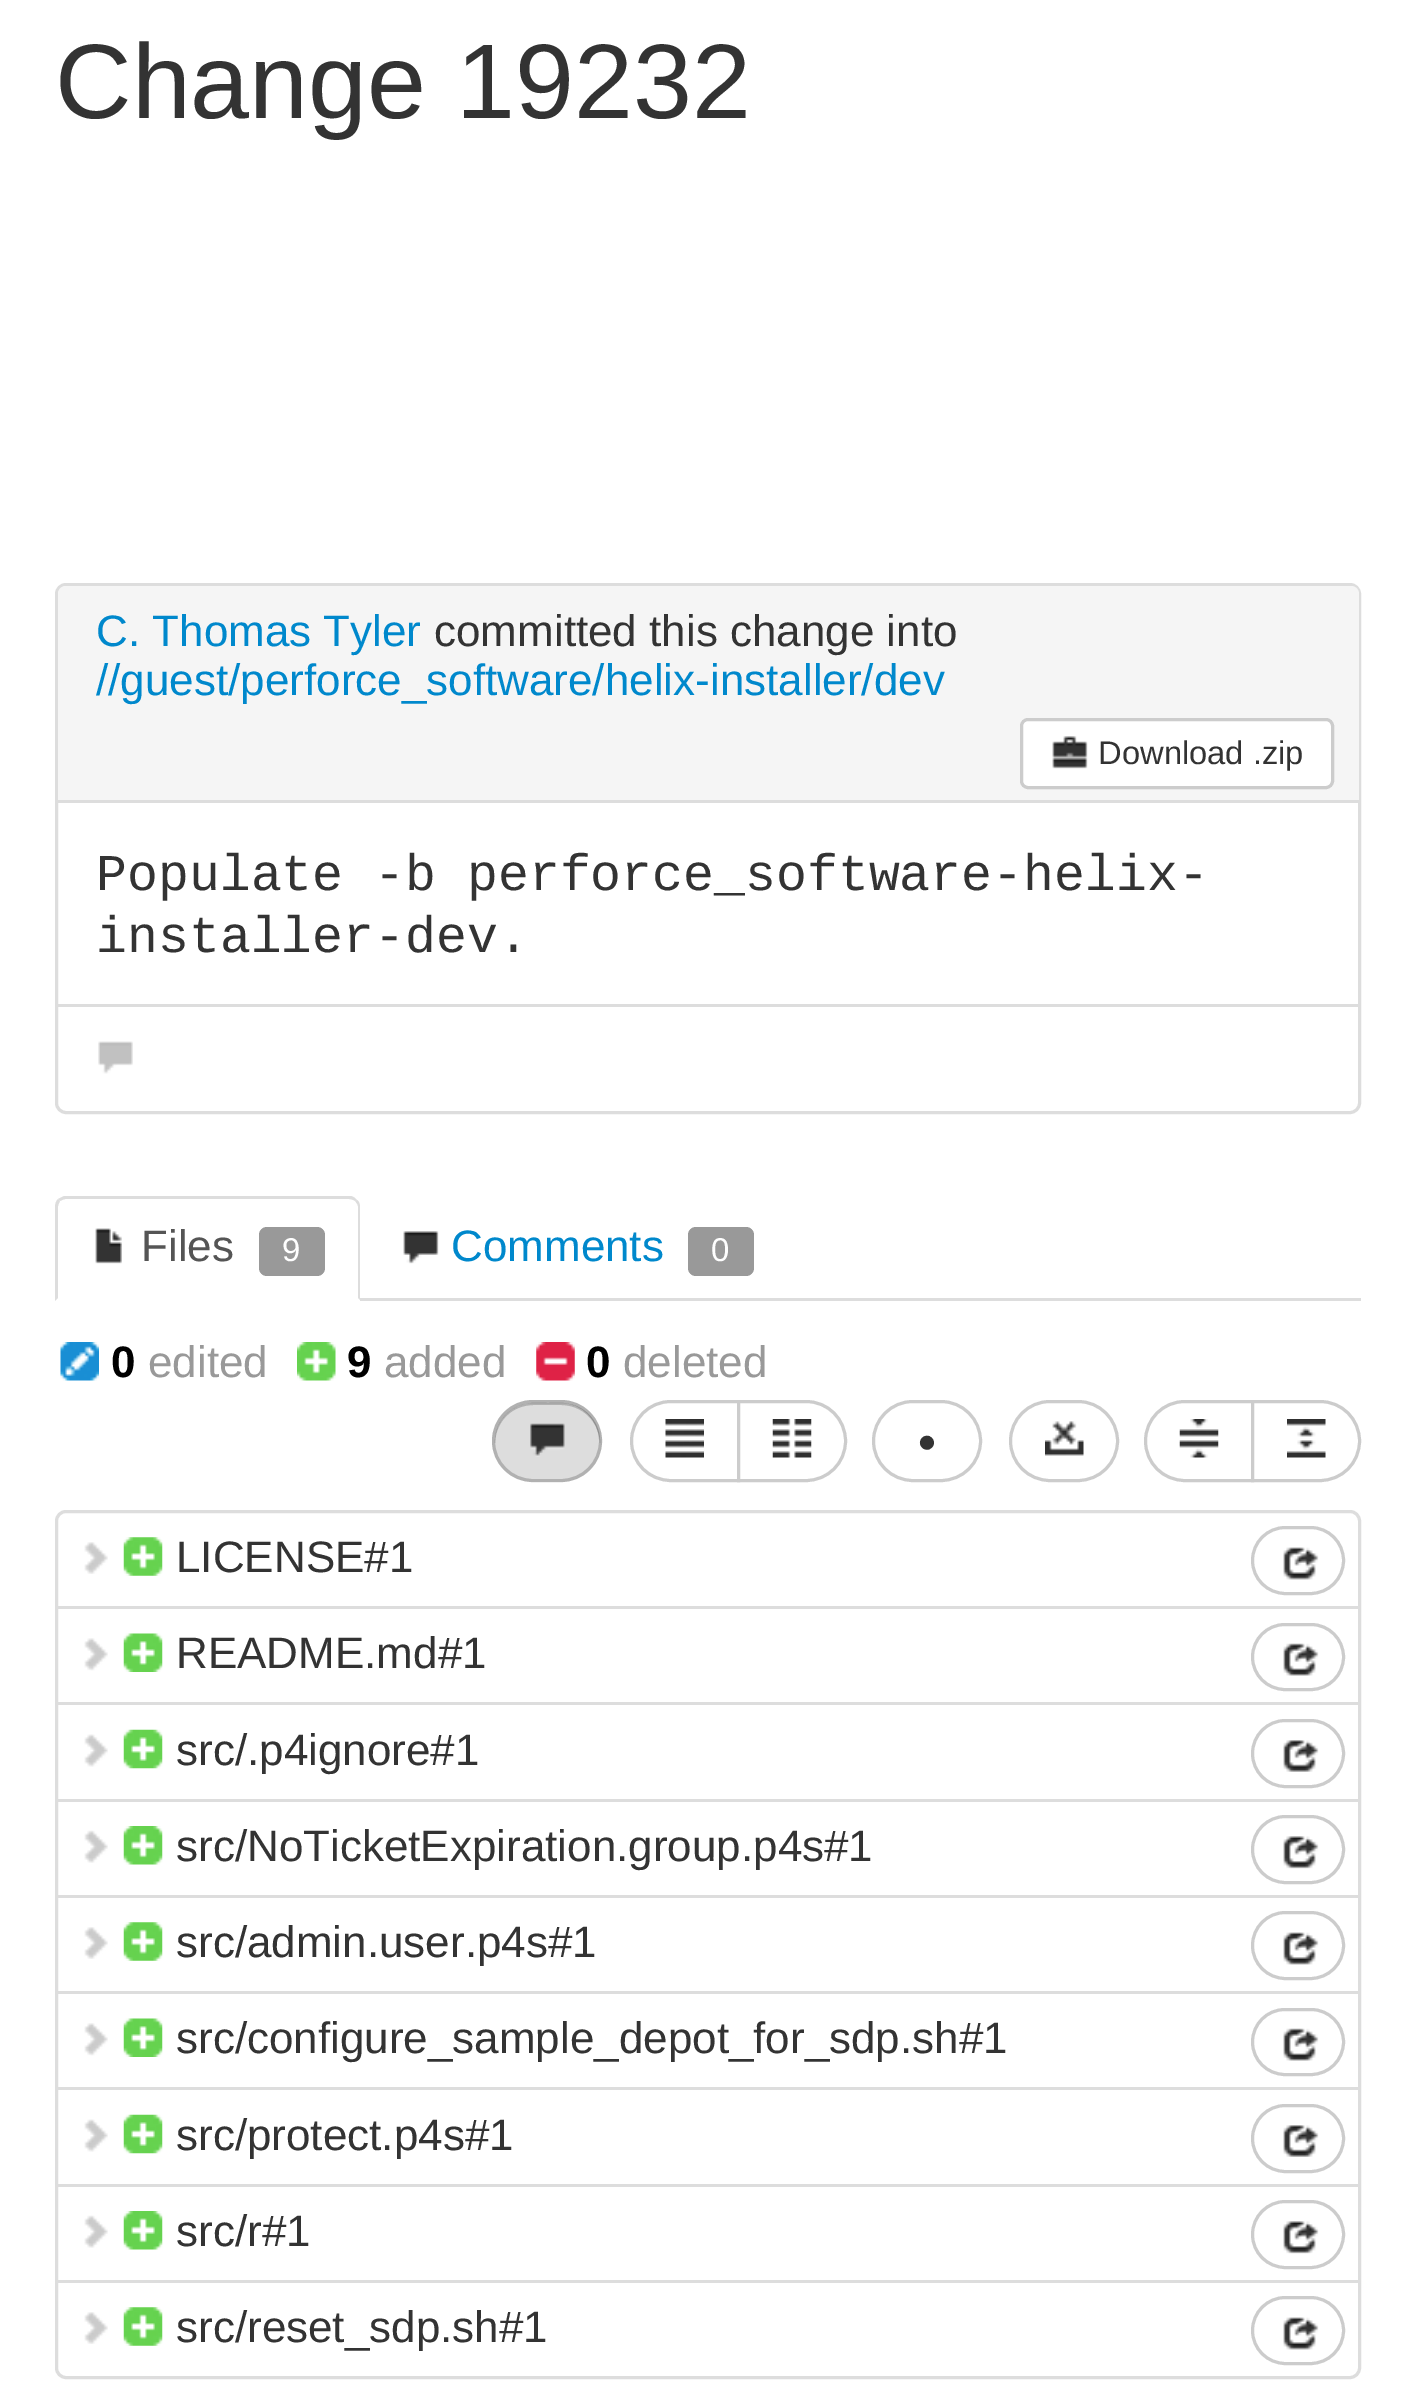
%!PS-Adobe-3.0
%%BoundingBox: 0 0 1416 2401
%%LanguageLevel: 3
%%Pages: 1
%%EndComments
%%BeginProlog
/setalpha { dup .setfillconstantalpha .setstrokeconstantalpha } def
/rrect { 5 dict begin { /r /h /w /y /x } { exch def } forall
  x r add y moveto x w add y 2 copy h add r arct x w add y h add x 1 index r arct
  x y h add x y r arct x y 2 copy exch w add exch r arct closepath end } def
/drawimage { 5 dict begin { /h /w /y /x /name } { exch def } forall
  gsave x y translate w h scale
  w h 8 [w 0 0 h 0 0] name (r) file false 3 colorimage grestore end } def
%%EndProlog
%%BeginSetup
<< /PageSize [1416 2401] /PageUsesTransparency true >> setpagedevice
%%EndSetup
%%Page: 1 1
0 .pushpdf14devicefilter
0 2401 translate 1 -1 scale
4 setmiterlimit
1 setgray
0 0 1416 2401 rectfill
0.867 setgray
3 setlinewidth
56.5 584.5 1303 528 9.5 rrect stroke
0.961 setgray
newpath 66 586 moveto 1351 586 lineto 1355.5 586 1359 589.5 1359 594 curveto 1359 803 lineto 58 803 lineto 58 594 lineto 58 589.5 61.5 586 66 586 curveto closepath fill
0.867 setgray
58 800 1301 3 rectfill
1 setgray
1020 718 314 71 8 rrect fill
0.2 setalpha
0 setgray
1021.5 719.5 311 68 6.5 rrect stroke
1 setalpha
(images/1.raw) 1052 736 36 33 drawimage
0.867 setgray
58 1004 1301 3 rectfill
(images/2.raw) 98 1041 35 33 drawimage
360 1298 1001 3 rectfill
newpath 66 1199 moveto 64 1199 62 1200 60 1201 curveto 58 1199 lineto 60 1198 62 1197 64 1196 curveto 351 1196 lineto 354 1197 355 1198 357 1200 curveto 355 1201 lineto 354 1200 351 1199 349 1199 curveto closepath fill
newpath 357 1200 moveto 359 1201 360 1204 360 1207 curveto 360 1300 lineto 358 1298 lineto 358 1207 lineto 358 1205 357 1203 355 1201 curveto closepath fill
newpath 55 1301 moveto 58 1298 lineto 58 1207 lineto 58 1205 59 1203 60 1201 curveto 58 1199 lineto 56 1201 55 1204 55 1207 curveto closepath fill
(images/3.raw) 95 1228 27 36 drawimage
0.6 setgray
259 1227 66 49 8 rrect fill
(images/4.raw) 403 1231 36 33 drawimage
688 1227 66 49 8 rrect fill
(images/5.raw) 60 1342 39 39 drawimage
(images/6.raw) 297 1342 39 39 drawimage
(images/7.raw) 536 1342 39 39 drawimage
0.867 setgray
492 1400 110 82 41 rrect fill
0.694 setgray
newpath 534 1405 moveto 561 1405 lineto 582 1405 599 1421 600 1443 curveto 601 1424 587 1407 569 1404 curveto 562 1402 555 1403 548 1403 curveto 540 1403 533 1402 526 1404 curveto 508 1407 494 1424 495 1443 curveto 496 1421 512 1405 534 1405 curveto closepath fill
0.2 setalpha
0 setgray
493.5 1401.5 107 79 39.5 rrect stroke
1 setalpha
(images/8.raw) 530 1423 35 34 drawimage
0.8 setgray
newpath 671 1401.5 moveto 738.5 1401.5 lineto 738.5 1480.5 lineto 671 1480.5 lineto 649 1480.5 631.5 1463 631.5 1441 curveto 631.5 1419 649 1401.5 671 1401.5 curveto closepath stroke
(images/9.raw) 665 1419 39 39 drawimage
1 setgray
newpath 738.5 1401.5 moveto 806 1401.5 lineto 828 1401.5 845.5 1419 845.5 1441 curveto 845.5 1463 828 1480.5 806 1480.5 curveto 738.5 1480.5 lineto closepath gsave fill grestore
0.8 setgray
stroke
(images/10.raw) 772 1419 40 39 drawimage
873.5 1401.5 107 79 39.5 rrect stroke
1010.5 1401.5 107 79 39.5 rrect stroke
(images/11.raw) 1045 1421 39 35 drawimage
newpath 1185 1401.5 moveto 1252.5 1401.5 lineto 1252.5 1480.5 lineto 1185 1480.5 lineto 1163 1480.5 1145.5 1463 1145.5 1441 curveto 1145.5 1419 1163 1401.5 1185 1401.5 curveto closepath stroke
(images/12.raw) 1179 1419 40 39 drawimage
1 setgray
newpath 1252.5 1401.5 moveto 1320 1401.5 lineto 1342 1401.5 1359.5 1419 1359.5 1441 curveto 1359.5 1463 1342 1480.5 1320 1480.5 curveto 1252.5 1480.5 lineto closepath gsave fill grestore
0.8 setgray
stroke
(images/13.raw) 1287 1419 39 39 drawimage
0.867 setgray
56.5 1511.5 1303 866 9.5 rrect stroke
(images/14.raw) 84 1542 24 32 drawimage
(images/15.raw) 123 1537 40 39 drawimage
0.8 setgray
1252.5 1527.5 91 66 33 rrect stroke
(images/16.raw) 1283 1547 36 33 drawimage
0.867 setgray
58 1606 1301 3 rectfill
(images/17.raw) 84 1638 24 33 drawimage
(images/18.raw) 123 1633 40 39 drawimage
0.8 setgray
1252.5 1624.5 91 65 32.5 rrect stroke
(images/19.raw) 1283 1643 36 33 drawimage
0.867 setgray
58 1702 1301 3 rectfill
(images/20.raw) 84 1734 24 33 drawimage
(images/21.raw) 123 1729 40 40 drawimage
0.8 setgray
1252.5 1720.5 91 66 33 rrect stroke
(images/22.raw) 1283 1740 36 32 drawimage
0.867 setgray
58 1799 1301 3 rectfill
(images/23.raw) 84 1830 24 33 drawimage
(images/24.raw) 123 1826 40 39 drawimage
0.8 setgray
1252.5 1816.5 91 66 33 rrect stroke
(images/25.raw) 1283 1836 36 33 drawimage
0.867 setgray
58 1895 1301 3 rectfill
(images/14.raw) 84 1927 24 32 drawimage
(images/15.raw) 123 1922 40 39 drawimage
0.8 setgray
1252.5 1912.5 91 66 33 rrect stroke
(images/26.raw) 1283 1932 36 33 drawimage
0.867 setgray
58 1991 1301 3 rectfill
(images/17.raw) 84 2023 24 33 drawimage
(images/18.raw) 123 2018 40 39 drawimage
0.8 setgray
1252.5 2009.5 91 65 32.5 rrect stroke
(images/19.raw) 1283 2028 36 33 drawimage
0.867 setgray
58 2087 1301 3 rectfill
(images/20.raw) 84 2119 24 33 drawimage
(images/21.raw) 123 2114 40 40 drawimage
0.8 setgray
1252.5 2105.5 91 66 33 rrect stroke
(images/22.raw) 1283 2125 36 32 drawimage
0.867 setgray
58 2184 1301 3 rectfill
(images/23.raw) 84 2215 24 33 drawimage
(images/24.raw) 123 2211 40 39 drawimage
0.8 setgray
1252.5 2201.5 91 66 33 rrect stroke
(images/25.raw) 1283 2221 36 33 drawimage
0.867 setgray
58 2280 1301 3 rectfill
(images/14.raw) 84 2312 24 32 drawimage
(images/15.raw) 123 2307 40 39 drawimage
0.8 setgray
1252.5 2297.5 91 66 33 rrect stroke
(images/16.raw) 1283 2317 36 33 drawimage
/Arimo-Regular [106 0 0 -106 0 0] selectfont
0.2 setgray
55 118 moveto (Change 19232) show
/Arimo-Regular [44 0 0 -44 0 0] selectfont
0 0.533 0.8 setrgbcolor
96 646 moveto (C. Thomas Tyler) show
0.2 setgray
434 646 moveto (committed this change into) show
0 0.533 0.8 setrgbcolor
96 695 moveto (//guest/perforce_software/helix-installer/dev) show
/Arimo-Regular [32.75 0 0 -32.75 0 0] selectfont
0.2 setgray
1098 764 moveto (Download .zip) show
/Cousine-Regular [51.5 0 0 -51.5 0 0] selectfont
96 890 moveto (Populate -b perforce_software-helix-) show
96 952 moveto (installer-dev.) show
/Arimo-Regular [44 0 0 -44 0 0] selectfont
0.333 setgray
141 1261 moveto (Files) show
/Arimo-Regular [33 0 0 -33 0 0] selectfont
1 setgray
282 1261 moveto (9) show
/Arimo-Regular [44 0 0 -44 0 0] selectfont
0 0.533 0.8 setrgbcolor
451 1261 moveto (Comments) show
/Arimo-Regular [33 0 0 -33 0 0] selectfont
1 setgray
711 1261 moveto (0) show
/Arimo-Bold [44 0 0 -44 0 0] selectfont
0 setgray
111 1377 moveto (0) show
/Arimo-Regular [44 0 0 -44 0 0] selectfont
0.6 setgray
148 1377 moveto (edited) show
/Arimo-Bold [44 0 0 -44 0 0] selectfont
0 setgray
347 1377 moveto (9) show
/Arimo-Regular [44 0 0 -44 0 0] selectfont
0.6 setgray
384 1377 moveto (added) show
/Arimo-Bold [44 0 0 -44 0 0] selectfont
0 setgray
586 1377 moveto (0) show
/Arimo-Regular [44 0 0 -44 0 0] selectfont
0.6 setgray
623 1377 moveto (deleted) show
/Lato-Regular [38 0 0 -38 0 0] selectfont
0.2 setgray
916 1454 moveto (•) show
/Arimo-Regular [44 0 0 -44 0 0] selectfont
176 1572 moveto (LICENSE#1) show
176 1668 moveto (README.md#1) show
176 1765 moveto (src/.p4ignore#1) show
176 1861 moveto (src/NoTicketExpiration.group.p4s#1) show
176 1957 moveto (src/admin.user.p4s#1) show
176 2053 moveto (src/configure_sample_depot_for_sdp.sh#1) show
176 2150 moveto (src/protect.p4s#1) show
176 2246 moveto (src/r#1) show
176 2342 moveto (src/reset_sdp.sh#1) show
.poppdf14devicefilter showpage
%%EOF
